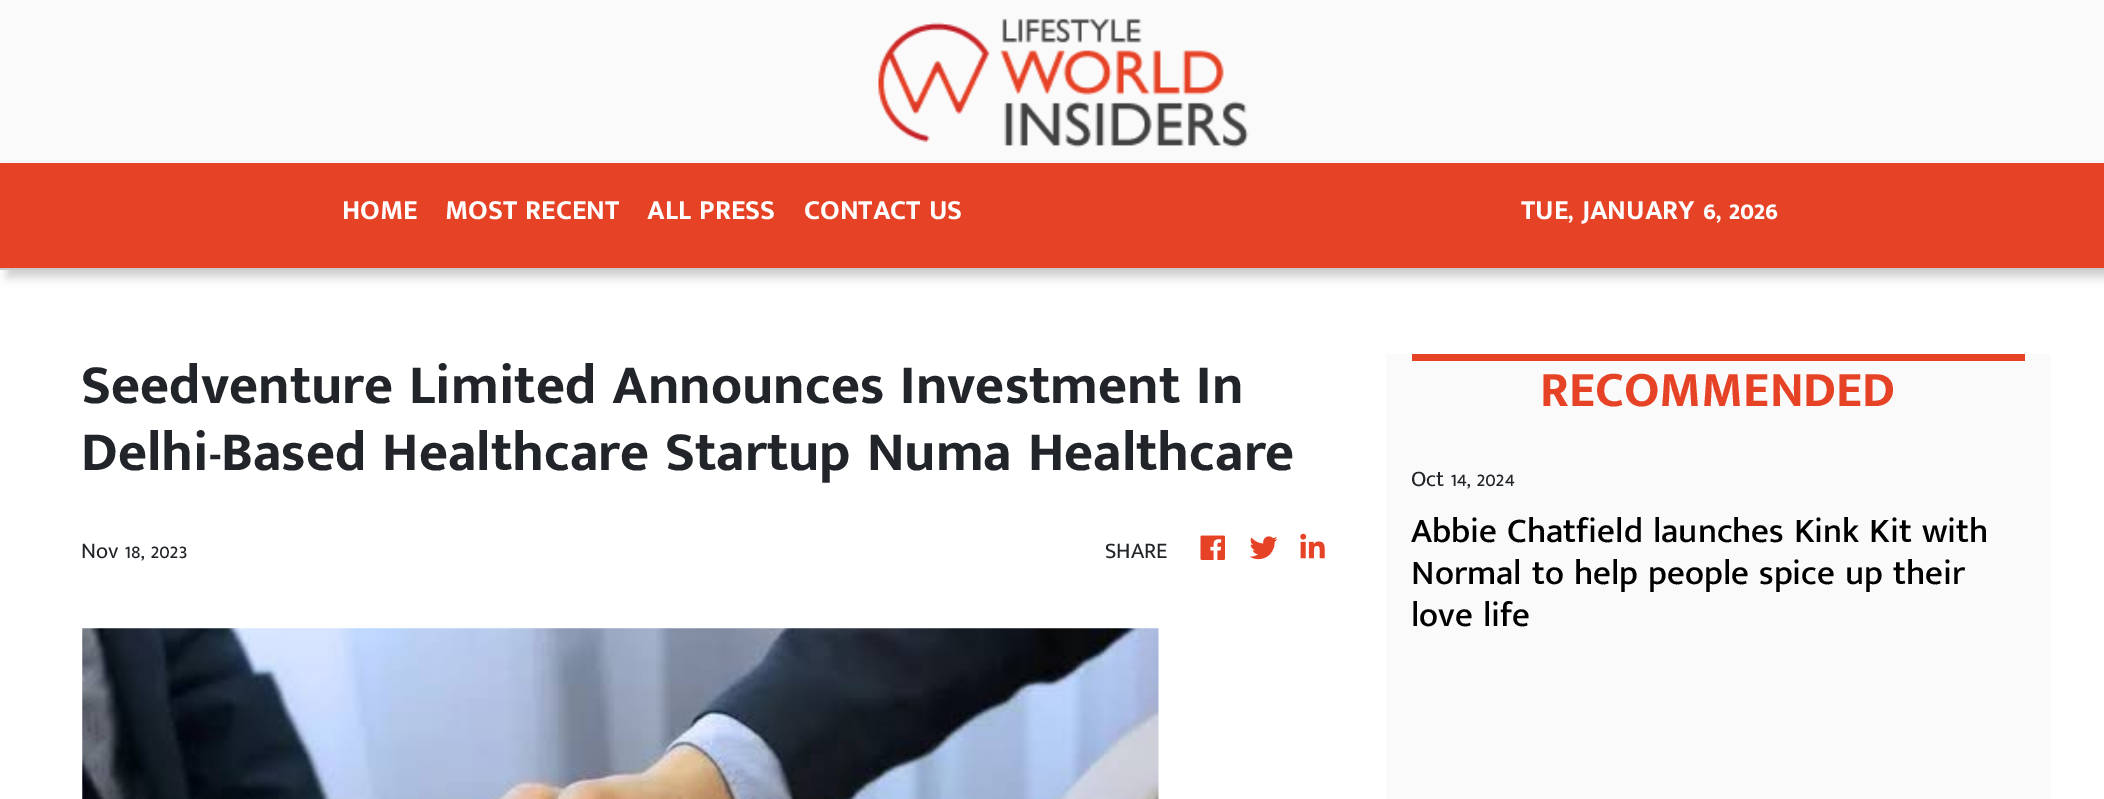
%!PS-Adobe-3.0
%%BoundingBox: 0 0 2104 799
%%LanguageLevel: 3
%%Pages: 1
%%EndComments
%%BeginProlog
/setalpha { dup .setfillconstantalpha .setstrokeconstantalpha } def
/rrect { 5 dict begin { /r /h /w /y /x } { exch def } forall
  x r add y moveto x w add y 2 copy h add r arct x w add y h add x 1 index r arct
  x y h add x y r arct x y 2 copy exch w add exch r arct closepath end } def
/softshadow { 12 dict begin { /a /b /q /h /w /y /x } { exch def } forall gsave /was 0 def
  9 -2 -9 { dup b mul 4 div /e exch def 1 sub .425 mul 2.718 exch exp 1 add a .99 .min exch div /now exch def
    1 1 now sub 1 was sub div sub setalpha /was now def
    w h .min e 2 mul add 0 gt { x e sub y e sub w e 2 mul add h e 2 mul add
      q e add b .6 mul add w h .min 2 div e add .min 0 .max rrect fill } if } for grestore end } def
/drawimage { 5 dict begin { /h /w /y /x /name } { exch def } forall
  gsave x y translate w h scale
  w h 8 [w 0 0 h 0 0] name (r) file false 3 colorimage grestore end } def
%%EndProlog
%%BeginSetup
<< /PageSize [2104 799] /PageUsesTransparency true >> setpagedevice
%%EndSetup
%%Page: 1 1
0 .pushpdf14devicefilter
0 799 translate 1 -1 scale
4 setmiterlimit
1 setgray
0 0 2104 799 rectfill
0.98 setgray
0 0 2104 163 rectfill
(images/1.raw) 878 18 371 130 drawimage
0.8 setgray
7 170 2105 107 0 5 1 softshadow
0.902 0.259 0.149 setrgbcolor
0 163 2104 105 rectfill
0.792 setgray
0 268 2104 2 rectfill
(images/2.raw) 1200 535 25 25 drawimage
(images/3.raw) 1249 536 29 24 drawimage
(images/4.raw) 1300 533 25 26 drawimage
(images/5.raw) 82 628 1077 171 drawimage
0.98 setgray
1386 354 665 445 rectfill
0.902 0.259 0.149 setrgbcolor
1412 354 613 7 rectfill
/MuktaMalar-Bold [28 0 0 -28 0 0] selectfont
1 setgray
342 219 moveto (HOME) show
445 219 moveto (MOST RECENT) show
647 219 moveto (ALL PRESS) show
804 219 moveto (CONTACT US) show
1521 219 moveto (TUE, JANUARY 6, 2026) show
/MuktaMalar-Bold [56 0 0 -56 0 0] selectfont
0.129 0.145 0.161 setrgbcolor
81 403 moveto (Seedventure Limited Announces Investment In) show
81 470 moveto (Delhi-Based Healthcare Startup Numa Healthcare) show
/MuktaMalar-Regular [22.5 0 0 -22.5 0 0] selectfont
81 558 moveto (Nov 18, 2023) show
1105 558 moveto (SHARE) show
/MuktaMalar-Bold [50.5 0 0 -50.5 0 0] selectfont
0.902 0.259 0.149 setrgbcolor
1540 406 moveto (RECOMMENDED) show
/MuktaMalar-Regular [22.5 0 0 -22.5 0 0] selectfont
0.129 0.145 0.161 setrgbcolor
1411 486 moveto (Oct 14, 2024) show
/MuktaMalar-Medium [35 0 0 -35 0 0] selectfont
0 setgray
1411 542 moveto (Abbie Chatfield launches Kink Kit with) show
1411 584 moveto (Normal to help people spice up their) show
1411 626 moveto (love life) show
.poppdf14devicefilter showpage
%%EOF
